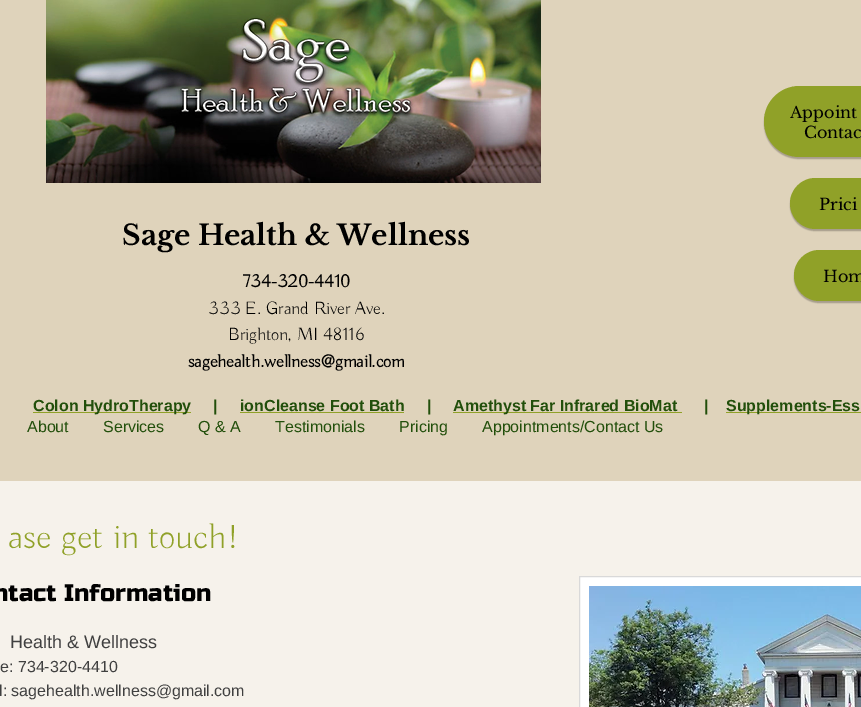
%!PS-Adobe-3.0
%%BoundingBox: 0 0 861 707
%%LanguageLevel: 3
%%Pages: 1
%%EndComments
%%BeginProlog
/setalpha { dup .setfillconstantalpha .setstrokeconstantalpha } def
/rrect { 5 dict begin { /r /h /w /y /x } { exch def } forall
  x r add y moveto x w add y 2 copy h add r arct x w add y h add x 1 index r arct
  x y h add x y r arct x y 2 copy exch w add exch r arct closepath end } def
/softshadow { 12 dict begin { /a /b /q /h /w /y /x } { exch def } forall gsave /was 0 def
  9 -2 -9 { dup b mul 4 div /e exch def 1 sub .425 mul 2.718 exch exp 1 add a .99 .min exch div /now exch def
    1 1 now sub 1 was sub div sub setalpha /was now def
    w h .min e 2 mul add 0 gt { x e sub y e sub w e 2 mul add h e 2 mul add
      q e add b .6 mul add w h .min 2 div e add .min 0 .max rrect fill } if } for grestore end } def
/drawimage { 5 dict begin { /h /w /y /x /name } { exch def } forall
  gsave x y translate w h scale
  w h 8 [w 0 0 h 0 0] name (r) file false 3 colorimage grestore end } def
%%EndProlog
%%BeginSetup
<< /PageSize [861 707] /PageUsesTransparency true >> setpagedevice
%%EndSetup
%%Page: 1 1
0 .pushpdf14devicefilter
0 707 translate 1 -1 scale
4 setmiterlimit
0.875 0.827 0.733 setrgbcolor
0 0 861 707 rectfill
(images/1.raw) 46 0 495 183 drawimage
0 setgray
764 88 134 71 35.5 0.5 0.25 softshadow
0.565 0.631 0.157 setrgbcolor
764 86 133 71 35.5 rrect fill
0 setgray
790 180 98 51 25.5 0.5 0.25 softshadow
0.565 0.631 0.157 setrgbcolor
790 178 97 51 25.5 rrect fill
0 setgray
794 252 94 51 25.5 0.5 0.25 softshadow
0.565 0.631 0.157 setrgbcolor
794 250 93 51 25.5 rrect fill
33 412 158 1 rectfill
240 412 164 1 rectfill
453 412 229 1 rectfill
726 412 135 1 rectfill
0.965 0.949 0.922 setrgbcolor
0 481 861 226 rectfill
1 setgray
newpath 579.5 576.5 moveto 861.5 576.5 lineto 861.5 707.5 lineto 579.5 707.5 lineto closepath gsave fill grestore
0.851 setgray
stroke
(images/2.raw) 589 586 272 121 drawimage
/LibreBaskerville-Bold [28 0 0 -28 0 0] selectfont
0 setgray
122 245 moveto (Sage Health & Wellness) show
/Buda-Bold [18 0 0 -18 0 0] selectfont
243 287 moveto (734-320-4410) show
/Buda-Light [18 0 0 -18 0 0] selectfont
208 314 moveto (333 E. Grand River Ave.) show
228 340 moveto (Brighton, MI 48116) show
/Buda-Bold [18 0 0 -18 0 0] selectfont
188 367 moveto (sagehealth.wellness@gmail.com) show
/LibreBaskerville-Regular [16 0 0 -16 0 0] selectfont
790 118 moveto (Appoint) show
804 138 moveto (Contac) show
819 210 moveto (Prici) show
823 282 moveto (Hom) show
/LiberationSans-Bold [16 0 0 -16 0 0] selectfont
0.133 0.31 0.043 setrgbcolor
33 411 moveto (Colon HydroTherapy) show
213 411 moveto (|) show
240 411 moveto (ionCleanse Foot Bath) show
427 411 moveto (|) show
453 411 moveto (Amethyst Far Infrared BioMat) show
704 411 moveto (|) show
726 411 moveto (Supplements-Ess) show
/Arimo-Regular [16 0 0 -16 0 0] selectfont
27 432 moveto (About) show
103 432 moveto (Services) show
198 432 moveto (Q & A) show
275 432 moveto (Testimonials) show
399 432 moveto (Pricing) show
482 432 moveto (Appointments/Contact Us) show
/Buda-Light [36 0 0 -36 0 0] selectfont
0.565 0.631 0.157 setrgbcolor
8 548 moveto (ase get in touch!) show
/RussoOne-Regular [24 0 0 -24 0 0] selectfont
0 setgray
-7 601 moveto (ntact Information) show
/LiberationSans-Regular [18 0 0 -18 0 0] selectfont
0.251 setgray
10 648 moveto (Health & Wellness) show
/LiberationSans-Regular [16 0 0 -16 0 0] selectfont
0 672 moveto (e: 734-320-4410) show
-1 696 moveto (l: sagehealth.wellness@gmail.com) show
.poppdf14devicefilter showpage
%%EOF
